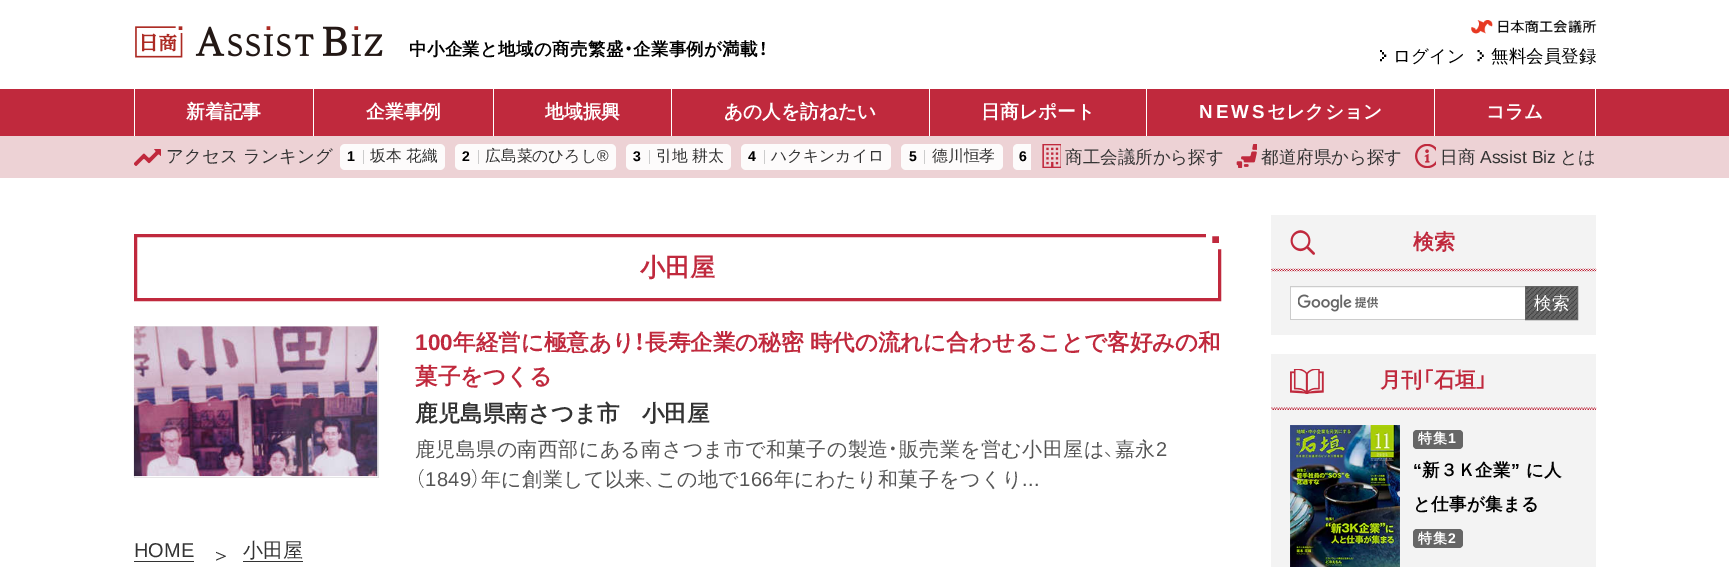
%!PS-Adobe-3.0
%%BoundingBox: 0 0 1729 567
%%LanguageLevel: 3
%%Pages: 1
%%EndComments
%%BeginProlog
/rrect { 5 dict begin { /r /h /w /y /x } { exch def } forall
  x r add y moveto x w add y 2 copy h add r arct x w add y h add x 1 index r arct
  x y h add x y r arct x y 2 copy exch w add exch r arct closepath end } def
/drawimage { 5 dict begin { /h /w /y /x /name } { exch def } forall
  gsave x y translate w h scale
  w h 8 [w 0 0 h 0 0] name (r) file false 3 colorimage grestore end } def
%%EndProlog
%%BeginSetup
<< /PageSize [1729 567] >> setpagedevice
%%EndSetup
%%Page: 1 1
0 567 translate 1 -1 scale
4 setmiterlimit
1 setgray
0 0 1729 567 rectfill
(images/1.raw) 135 26 248 32 drawimage
(images/2.raw) 1471 20 126 14 drawimage
(images/3.raw) 1380 50 7 12 drawimage
(images/4.raw) 1477 50 7 12 drawimage
0.753 0.161 0.239 setrgbcolor
0 89 1729 47 rectfill
1 setgray
134 89 1 47 rectfill
313 89 1 47 rectfill
493 89 1 47 rectfill
671 89 1 47 rectfill
929 89 1 47 rectfill
1146 89 1 47 rectfill
1434 89 1 47 rectfill
1595 89 1 47 rectfill
0.929 0.824 0.835 setrgbcolor
0 136 1729 42 rectfill
(images/5.raw) 134 149 27 17 drawimage
0.992 0.984 0.984 setrgbcolor
340 144 105 26 5 rrect fill
0.8 setgray
363 150 1 14 rectfill
0.992 0.984 0.984 setrgbcolor
455 144 161 26 5 rrect fill
0.8 setgray
478 150 1 14 rectfill
0.992 0.984 0.984 setrgbcolor
626 144 105 26 5 rrect fill
0.8 setgray
649 150 1 14 rectfill
0.992 0.984 0.984 setrgbcolor
741 144 150 26 5 rrect fill
0.8 setgray
764 150 1 14 rectfill
0.992 0.984 0.984 setrgbcolor
901 144 102 26 5 rrect fill
0.8 setgray
924 150 1 14 rectfill
0.992 0.984 0.984 setrgbcolor
newpath 1018 144 moveto 1031 144 lineto 1031 170 lineto 1018 170 lineto 1015 170 1013 168 1013 165 curveto 1013 149 lineto 1013 146 1015 144 1018 144 curveto closepath fill
(images/6.raw) 1042 144 19 24 drawimage
(images/7.raw) 1236 144 21 24 drawimage
(images/8.raw) 1415 144 21 24 drawimage
0.753 0.161 0.239 setrgbcolor
3 setlinewidth
135.5 235.5 1084 64 rectstroke
1212 237 7 6 rectfill
1 setgray
6 setlinewidth
1209 233 13 13 rectstroke
0.867 setgray
0.6 setlinewidth
134.3 326.3 244.4 151.4 rectstroke
(images/9.raw) 133 326 245 151 drawimage
0.2 setgray
134 561 60 1 rectfill
243 561 60 1 rectfill
0.953 setgray
1271 215 325 120 rectfill
(images/10.raw) 1290 230 25 25 drawimage
(images/11.raw) 1271 268 326 4 drawimage
1 setgray
1291 288 234 31 rectfill
(images/12.raw) 1298 294 80 18 drawimage
0.8 setgray
1290 286 235 1 rectfill
1290 319 235 1 rectfill
1290 286 1 34 rectfill
0.4 setgray
1526 287 51 32 rectfill
(images/13.raw) 1526 287 51 32 drawimage
1 setlinewidth
1525.5 286.5 52 33 rectstroke
0.953 setgray
1271 354 325 213 rectfill
(images/14.raw) 1290 369 34 25 drawimage
(images/15.raw) 1271 407 326 3 drawimage
(images/16.raw) 1290 425 110 142 drawimage
0.4 setgray
1413 430 50 19 4 rrect fill
1413 529 50 19 4 rrect fill
/WenQuanYiZenHei-Bold [17.5 0 0 -17.5 0 0] selectfont
0 setgray
409 55 moveto 0.3 0 (中小企業と地域の商売繁盛) ashow
/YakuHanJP-Medium [17.5 0 0 -17.5 0 0] selectfont
624 55 moveto 0.3 0 (・) ashow
/WenQuanYiZenHei-Bold [17.5 0 0 -17.5 0 0] selectfont
633 55 moveto 0.3 0 (企業事例が満載) ashow
/YakuHanJP-Medium [17.5 0 0 -17.5 0 0] selectfont
759 55 moveto 0.3 0 (！) ashow
/WenQuanYiZenHei-Medium [17.5 0 0 -17.5 0 0] selectfont
1393 62 moveto (ログイン) show
1491 62 moveto (無料会員登録) show
/WenQuanYiZenHei-Bold [18.75 0 0 -18.75 0 0] selectfont
1 setgray
186 118 moveto (新着記事) show
366 118 moveto (企業事例) show
545 118 moveto (地域振興) show
724 118 moveto (あの人を訪ねたい) show
981 118 moveto (日商レポート) show
/LiberationSans-Bold [18.75 0 0 -18.75 0 0] selectfont
1199 118 moveto 3 0 (NEWS) ashow
/WenQuanYiZenHei-Bold [18.75 0 0 -18.75 0 0] selectfont
1267 118 moveto (セレクション) show
1486 118 moveto (コラム) show
/WenQuanYiZenHei-Medium [17.5 0 0 -17.5 0 0] selectfont
0.2 setgray
166 162 moveto (アクセス) show
243 162 moveto (ランキング) show
/LiberationSans-Bold [14 0 0 -14 0 0] selectfont
0 setgray
347 161 moveto (1) show
/WenQuanYiZenHei-Medium [15.75 0 0 -15.75 0 0] selectfont
0.2 setgray
370 161 moveto (坂本 花織) show
/LiberationSans-Bold [14 0 0 -14 0 0] selectfont
0 setgray
462 161 moveto (2) show
/WenQuanYiZenHei-Medium [15.75 0 0 -15.75 0 0] selectfont
0.2 setgray
485 161 moveto (広島菜のひろし) show
/LiberationSans-Regular [15.75 0 0 -15.75 0 0] selectfont
597 161 moveto (®) show
/LiberationSans-Bold [14 0 0 -14 0 0] selectfont
0 setgray
633 161 moveto (3) show
/WenQuanYiZenHei-Medium [15.75 0 0 -15.75 0 0] selectfont
0.2 setgray
656 161 moveto (引地 耕太) show
/LiberationSans-Bold [14 0 0 -14 0 0] selectfont
0 setgray
748 161 moveto (4) show
/WenQuanYiZenHei-Medium [15.75 0 0 -15.75 0 0] selectfont
0.2 setgray
771 161 moveto (ハクキンカイロ) show
/LiberationSans-Bold [14 0 0 -14 0 0] selectfont
0 setgray
909 161 moveto (5) show
/WenQuanYiZenHei-Medium [15.75 0 0 -15.75 0 0] selectfont
0.2 setgray
932 161 moveto (德川恒孝) show
/LiberationSans-Bold [14 0 0 -14 0 0] selectfont
0 setgray
1019 161 moveto (6) show
/WenQuanYiZenHei-Medium [17.5 0 0 -17.5 0 0] selectfont
0.2 setgray
1065 163 moveto (商工会議所から探す) show
1261 163 moveto (都道府県から探す) show
1440 163 moveto (日商) show
/LiberationSans-Regular [17.5 0 0 -17.5 0 0] selectfont
1480 163 moveto (Assist Biz) show
/WenQuanYiZenHei-Medium [17.5 0 0 -17.5 0 0] selectfont
1560 163 moveto (とは) show
/WenQuanYiZenHei-Bold [25 0 0 -25 0 0] selectfont
0.753 0.161 0.239 setrgbcolor
640 276 moveto (小田屋) show
/LiberationSans-Bold [22.5 0 0 -22.5 0 0] selectfont
415 350 moveto (100) show
/WenQuanYiZenHei-Bold [22.5 0 0 -22.5 0 0] selectfont
453 350 moveto (年経営に極意あり) show
/YakuHanJP-Medium [22.5 0 0 -22.5 0 0] selectfont
634 350 moveto (！) show
/WenQuanYiZenHei-Bold [22.5 0 0 -22.5 0 0] selectfont
645 350 moveto (長寿企業の秘密 時代の流れに合わせることで客好みの和) show
415 384 moveto (菓子をつくる) show
0.2 setgray
415 421 moveto (鹿児島県南さつま市　小田屋) show
/WenQuanYiZenHei-Medium [20 0 0 -20 0 0] selectfont
0.333 setgray
415 456 moveto 0.4 0 (鹿児島県の南西部にある南さつま市で和菓子の製造) ashow
/YakuHanJP-Light [20 0 0 -20 0 0] selectfont
888 456 moveto 0.4 0 (・) ashow
/WenQuanYiZenHei-Medium [20 0 0 -20 0 0] selectfont
899 456 moveto 0.4 0 (販売業を営む小田屋は) ashow
1115 456 moveto 0.4 0 (嘉永) ashow
/LiberationSans-Regular [20 0 0 -20 0 0] selectfont
1156 456 moveto 0.4 0 (2) ashow
/YakuHanJP-Light [20 0 0 -20 0 0] selectfont
1104 456 moveto 0.4 0 (、) ashow
415 486 moveto 0.4 0 (（) ashow
/LiberationSans-Regular [20 0 0 -20 0 0] selectfont
425 486 moveto 0.4 0 (1849) ashow
/YakuHanJP-Light [20 0 0 -20 0 0] selectfont
471 486 moveto 0.4 0 (）) ashow
/WenQuanYiZenHei-Medium [20 0 0 -20 0 0] selectfont
481 486 moveto 0.4 0 (年に創業して以来) ashow
/YakuHanJP-Light [20 0 0 -20 0 0] selectfont
645 486 moveto 0.4 0 (、) ashow
/WenQuanYiZenHei-Medium [20 0 0 -20 0 0] selectfont
656 486 moveto 0.4 0 (この地で) ashow
/LiberationSans-Regular [20 0 0 -20 0 0] selectfont
739 486 moveto 0.4 0 (166) ashow
/WenQuanYiZenHei-Medium [20 0 0 -20 0 0] selectfont
774 486 moveto 0.4 0 (年にわたり和菓子をつくり) ashow
/LiberationSans-Regular [20 0 0 -20 0 0] selectfont
1022 486 moveto 0.4 0 (...) ashow
0.2 setgray
134 557 moveto (HOME) show
/WenQuanYiZenHei-Medium [20 0 0 -20 0 0] selectfont
211 562 moveto (＞) show
243 557 moveto (小田屋) show
/WenQuanYiZenHei-Bold [21 0 0 -21 0 0] selectfont
0.753 0.161 0.239 setrgbcolor
1413 249 moveto (検索) show
/WenQuanYiZenHei-Medium [17.5 0 0 -17.5 0 0] selectfont
1 setgray
1534 309 moveto (検索) show
/WenQuanYiZenHei-Bold [21 0 0 -21 0 0] selectfont
0.753 0.161 0.239 setrgbcolor
1380 387 moveto (月刊) show
/YakuHanJP-Medium [21 0 0 -21 0 0] selectfont
1422 387 moveto (「) show
/WenQuanYiZenHei-Bold [21 0 0 -21 0 0] selectfont
1434 387 moveto (石垣) show
/YakuHanJP-Medium [21 0 0 -21 0 0] selectfont
1476 387 moveto (」) show
/WenQuanYiZenHei-Bold [14 0 0 -14 0 0] selectfont
1 setgray
1418 443 moveto 1 0 (特集) ashow
/LiberationSans-Bold [14 0 0 -14 0 0] selectfont
1448 443 moveto 1 0 (1) ashow
/LiberationSans-Bold [17.5 0 0 -17.5 0 0] selectfont
0 setgray
1413 476 moveto 0.3 0 (“) ashow
/WenQuanYiZenHei-Bold [17.5 0 0 -17.5 0 0] selectfont
1422 476 moveto 0.3 0 (新３Ｋ企業) ashow
/LiberationSans-Bold [17.5 0 0 -17.5 0 0] selectfont
1511 476 moveto 0.3 0 (”) ashow
/WenQuanYiZenHei-Bold [17.5 0 0 -17.5 0 0] selectfont
1526 476 moveto 0.3 0 (に人) ashow
1413 510 moveto 0.3 0 (と仕事が集まる) ashow
/WenQuanYiZenHei-Bold [14 0 0 -14 0 0] selectfont
1 setgray
1418 543 moveto 1 0 (特集) ashow
/LiberationSans-Bold [14 0 0 -14 0 0] selectfont
1448 543 moveto 1 0 (2) ashow
showpage
%%EOF
